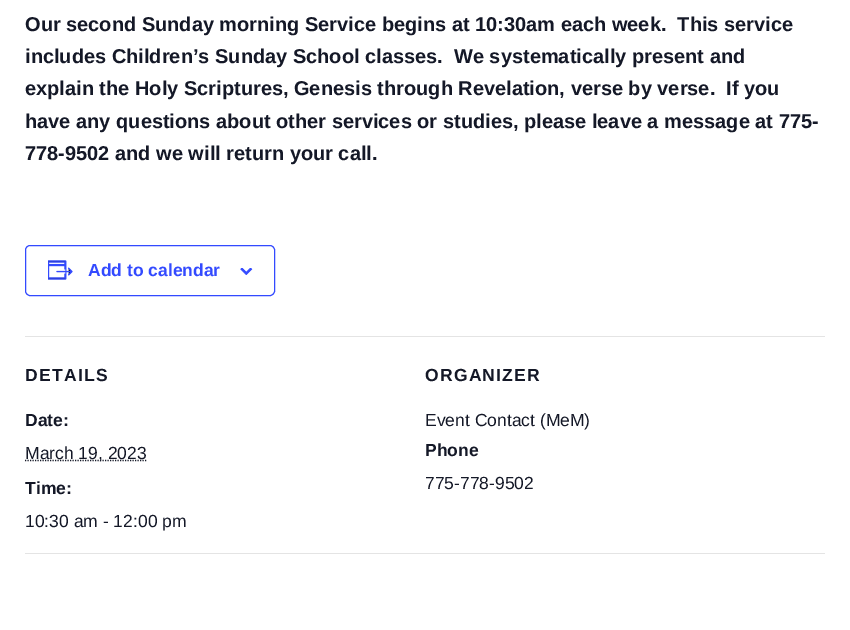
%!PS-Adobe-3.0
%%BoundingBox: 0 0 850 630
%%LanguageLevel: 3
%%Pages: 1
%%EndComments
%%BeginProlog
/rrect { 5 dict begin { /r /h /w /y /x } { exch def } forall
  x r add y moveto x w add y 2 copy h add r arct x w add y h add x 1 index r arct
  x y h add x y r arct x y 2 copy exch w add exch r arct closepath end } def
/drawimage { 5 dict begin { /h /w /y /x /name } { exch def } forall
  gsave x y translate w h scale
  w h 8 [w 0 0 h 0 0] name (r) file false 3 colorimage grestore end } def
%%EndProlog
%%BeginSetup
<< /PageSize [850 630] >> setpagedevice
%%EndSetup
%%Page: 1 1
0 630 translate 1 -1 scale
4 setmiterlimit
1 setgray
0 0 850 630 rectfill
0.2 0.29 1 setrgbcolor
25.5 245.5 249 50 4.5 rrect stroke
(images/1.raw) 48 260 25 20 drawimage
(images/2.raw) 240 268 13 7 drawimage
0.894 setgray
25 336 800 1 rectfill
0.078 0.094 0.153 setrgbcolor
1.2 setlinewidth
[1.25 1.25] 0 setdash
newpath 25 460.5 moveto 146.5 460.5 lineto stroke
0.894 setgray
25 553 800 1 rectfill
/LiberationSans-Bold [20 0 0 -20 0 0] selectfont
0.078 0.094 0.153 setrgbcolor
25 31 moveto (Our second Sunday morning Service begins at 10:30am each week.  This service) show
25 63 moveto (includes Children’s Sunday School classes.  We systematically present and) show
25 95 moveto (explain the Holy Scriptures, Genesis through Revelation, verse by verse.  If you) show
25 128 moveto (have any questions about other services or studies, please leave a message at 775-) show
25 160 moveto (778-9502 and we will return your call.) show
/LiberationSans-Bold [17.5 0 0 -17.5 0 0] selectfont
0.2 0.29 1 setrgbcolor
88 276 moveto (Add to calendar) show
0.078 0.094 0.153 setrgbcolor
25 381 moveto 1.25 0 (DETAILS) ashow
25 426 moveto (Date:) show
/LiberationSans-Regular [17.5 0 0 -17.5 0 0] selectfont
25 459 moveto (March 19, 2023) show
/LiberationSans-Bold [17.5 0 0 -17.5 0 0] selectfont
25 494 moveto (Time:) show
/LiberationSans-Regular [17.5 0 0 -17.5 0 0] selectfont
25 527 moveto (10:30 am - 12:00 pm) show
/LiberationSans-Bold [17.5 0 0 -17.5 0 0] selectfont
425 381 moveto 1.25 0 (ORGANIZER) ashow
/LiberationSans-Regular [17.5 0 0 -17.5 0 0] selectfont
425 426 moveto (Event Contact \(MeM\)) show
/LiberationSans-Bold [17.5 0 0 -17.5 0 0] selectfont
425 456 moveto (Phone) show
/LiberationSans-Regular [17.5 0 0 -17.5 0 0] selectfont
425 489 moveto (775-778-9502) show
showpage
%%EOF
